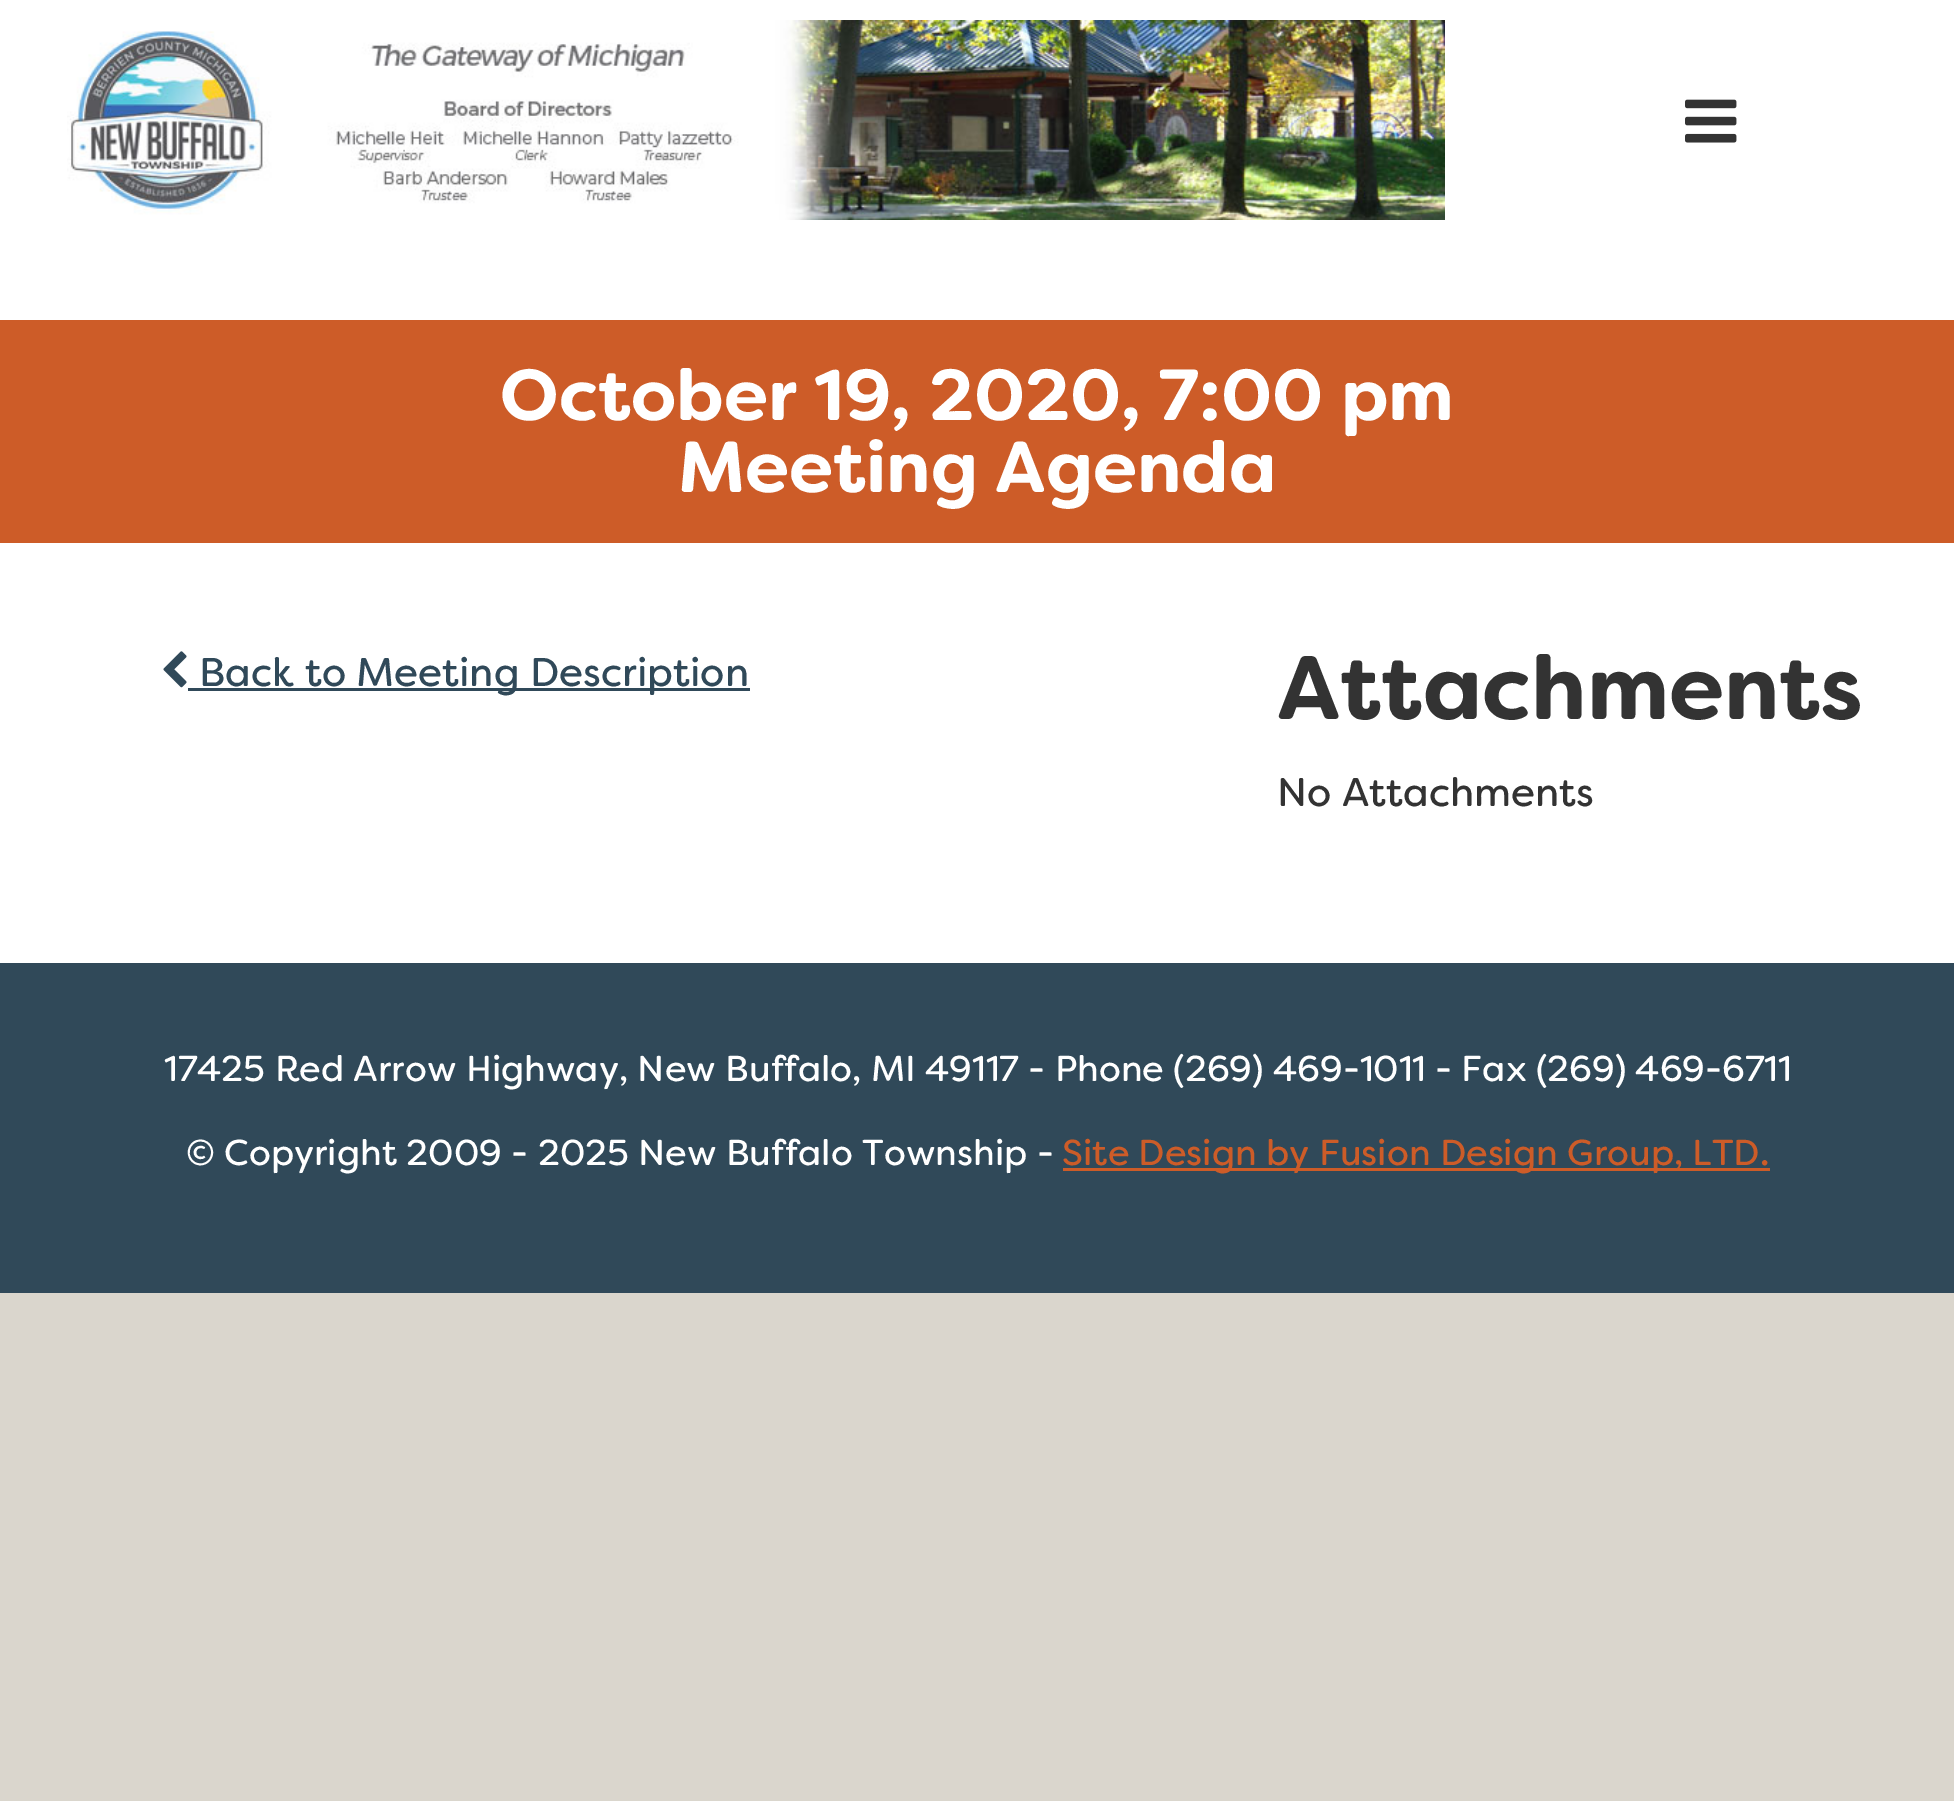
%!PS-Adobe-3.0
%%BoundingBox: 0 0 1954 1801
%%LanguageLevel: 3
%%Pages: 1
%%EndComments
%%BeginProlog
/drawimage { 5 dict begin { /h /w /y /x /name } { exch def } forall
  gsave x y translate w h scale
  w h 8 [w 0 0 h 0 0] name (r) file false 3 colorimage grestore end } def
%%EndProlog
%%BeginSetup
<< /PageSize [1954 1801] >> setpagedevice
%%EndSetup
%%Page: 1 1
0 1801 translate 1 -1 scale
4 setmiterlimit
0.855 0.839 0.804 setrgbcolor
0 0 1954 1801 rectfill
1 setgray
0 0 1954 963 rectfill
(images/1.raw) 67 20 1378 200 drawimage
(images/2.raw) 1685 99 52 44 drawimage
0.804 0.361 0.157 setrgbcolor
0 320 1954 223 rectfill
(images/3.raw) 163 651 24 37 drawimage
0.188 0.286 0.349 setrgbcolor
188 688 562 3 rectfill
0 963 1954 330 rectfill
0.804 0.361 0.157 setrgbcolor
1063 1168 707 3 rectfill
/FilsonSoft-Bold [72 0 0 -72 0 0] selectfont
1 setgray
500 420 moveto (October 19, 2020, 7:00 pm) show
678 492 moveto (Meeting Agenda) show
/FilsonSoft-Regular [40 0 0 -40 0 0] selectfont
0.188 0.286 0.349 setrgbcolor
199 686 moveto (Back to Meeting Description) show
/FilsonSoft-Bold [90 0 0 -90 0 0] selectfont
0.2 setgray
1277 719 moveto (Attachments) show
/FilsonSoft-Regular [40 0 0 -40 0 0] selectfont
1277 806 moveto (No Attachments) show
/FilsonSoft-Regular [36 0 0 -36 0 0] selectfont
1 setgray
164 1081 moveto (17425 Red Arrow Highway, New Buffalo, MI 49117 - Phone \(269\) 469-1011 - Fax \(269\) 469-6711) show
186 1165 moveto (© Copyright 2009 - 2025 New Buffalo Township -) show
0.804 0.361 0.157 setrgbcolor
1062 1165 moveto (Site Design by Fusion Design Group, LTD.) show
showpage
%%EOF
